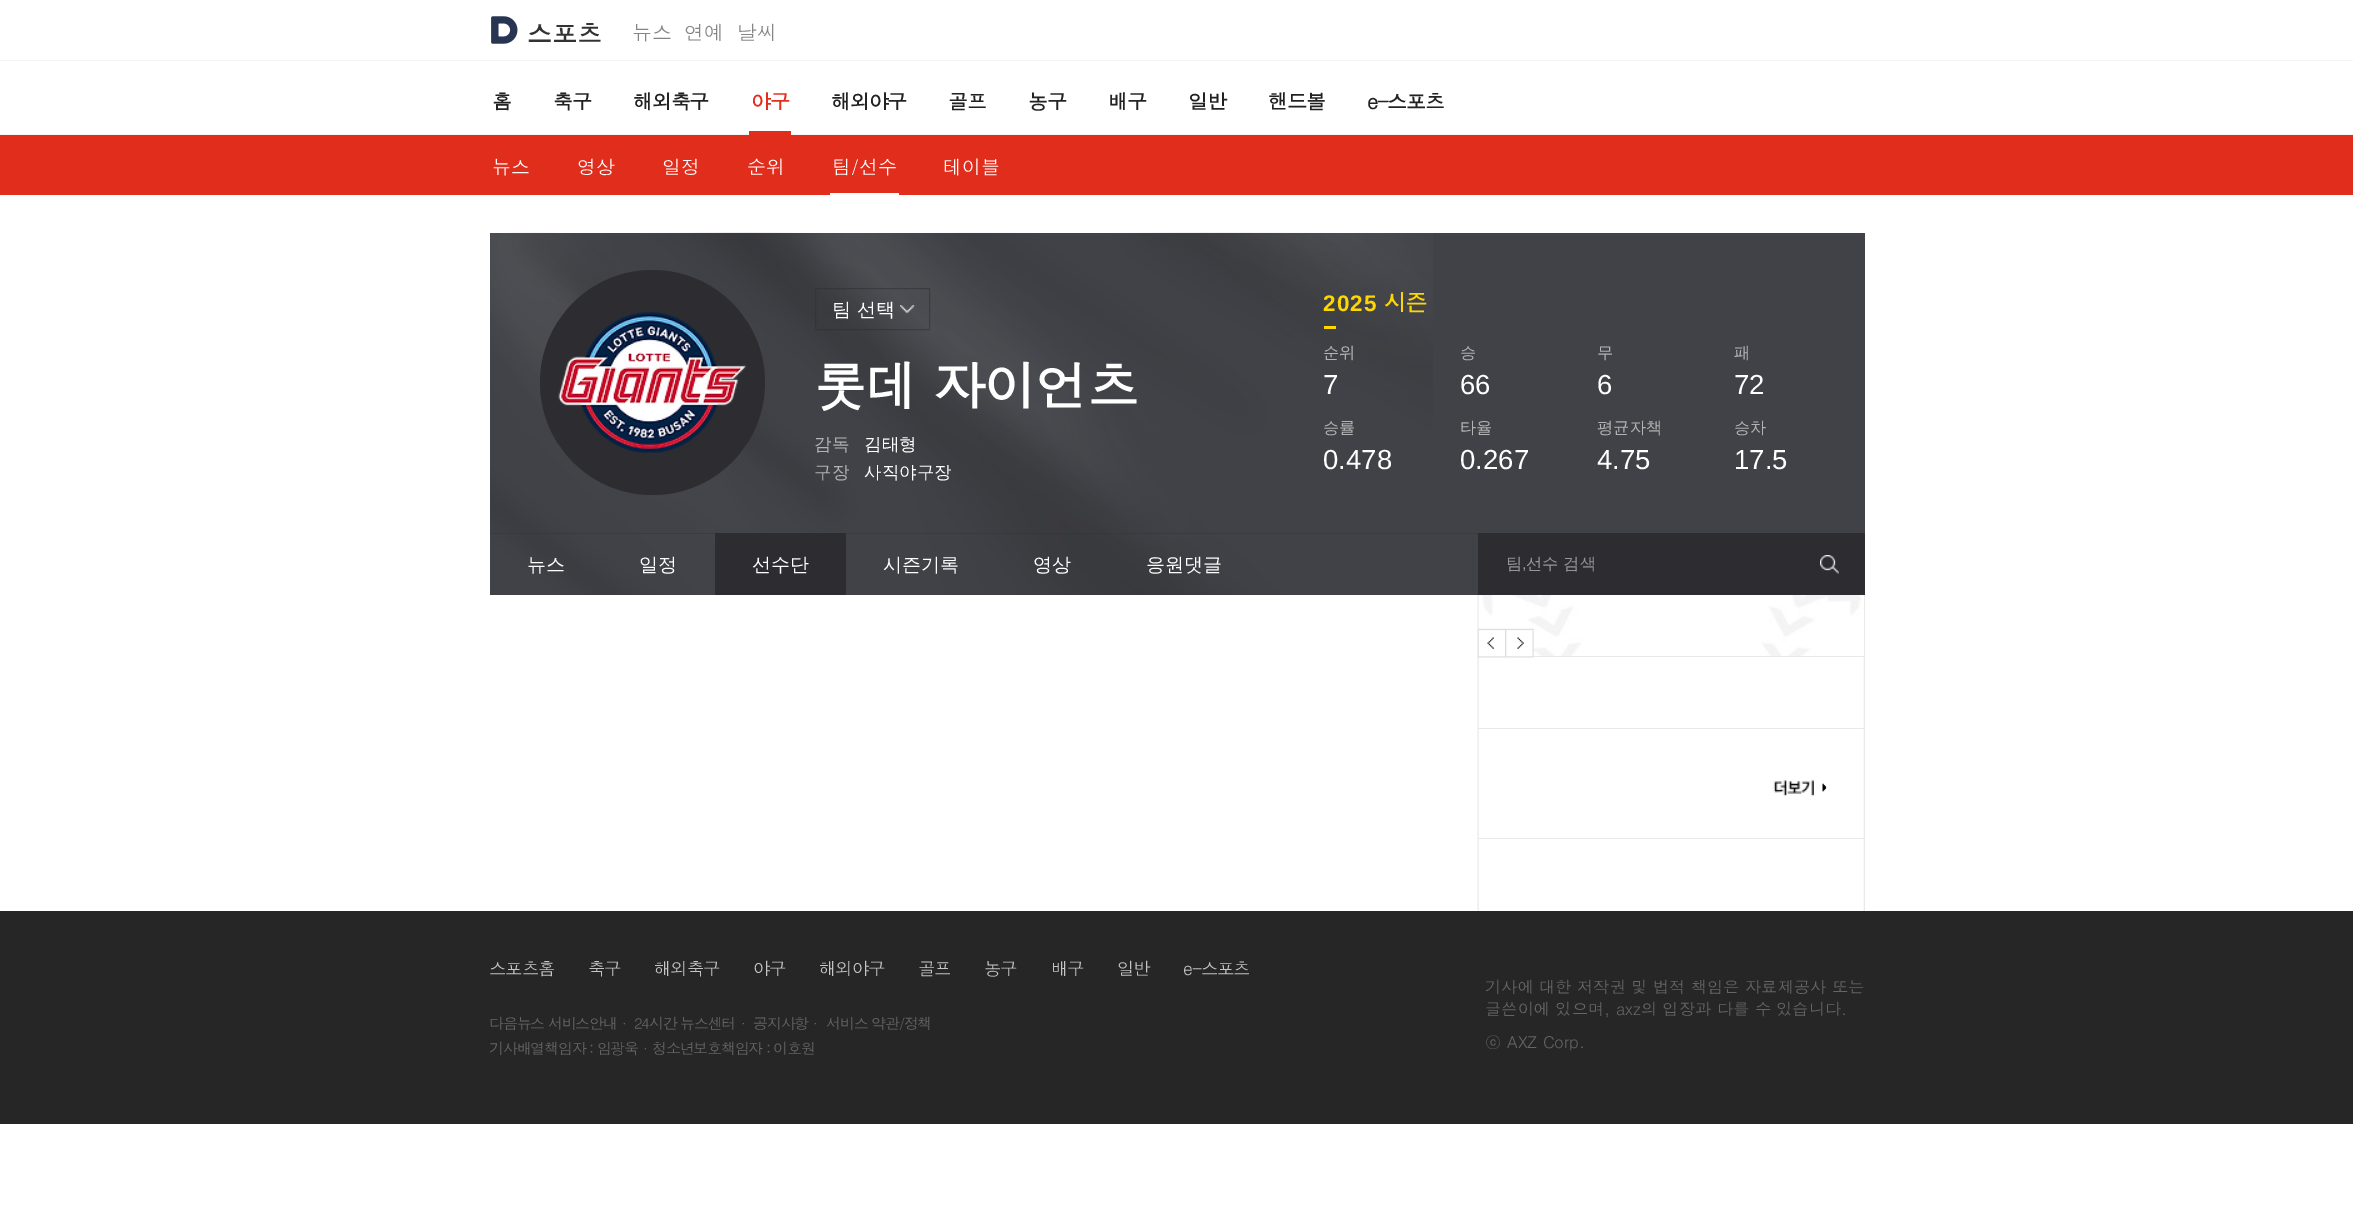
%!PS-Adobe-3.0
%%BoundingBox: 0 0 2353 1214
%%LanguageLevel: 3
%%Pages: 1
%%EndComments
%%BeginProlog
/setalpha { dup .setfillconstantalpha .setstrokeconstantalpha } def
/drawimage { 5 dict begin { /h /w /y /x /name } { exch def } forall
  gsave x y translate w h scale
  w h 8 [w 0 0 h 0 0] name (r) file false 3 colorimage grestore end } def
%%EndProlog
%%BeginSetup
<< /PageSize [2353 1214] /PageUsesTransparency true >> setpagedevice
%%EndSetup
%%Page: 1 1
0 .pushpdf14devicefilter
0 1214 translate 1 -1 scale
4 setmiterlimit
1 setgray
0 0 2353 1214 rectfill
(images/1.raw) 491 16 27 28 drawimage
0.957 setgray
0 60 2353 1 rectfill
0 134 2353 1 rectfill
0.882 0.176 0.106 setrgbcolor
749 131 42 4 rectfill
0 135 2353 60 rectfill
1 setgray
830 193 69 2 rectfill
0.255 0.259 0.278 setrgbcolor
490 233 1375 362 rectfill
(images/2.raw) 490 232 943 363 drawimage
(images/3.raw) 900 305 15 9 drawimage
0.5 setalpha
0.173 0.173 0.192 setrgbcolor
815.5 288.5 114 41 rectstroke
1 setalpha
1 0.843 0 setrgbcolor
1324 326 12 3 rectfill
0.173 0.173 0.192 setrgbcolor
newpath 652.5 382.5 112.5 0 360 arc closepath fill
(images/4.raw) 558 312 189 141 drawimage
715 533 131 62 rectfill
0.3 setalpha
490 533 988 1 rectfill
1 setalpha
1478 533 387 62 rectfill
(images/5.raw) 1820 555 19 19 drawimage
(images/6.raw) 1477 595 388 316 drawimage
1 setgray
1863 595 1 61 rectfill
(images/7.raw) 1478 595 384 61 drawimage
(images/8.raw) 1477 628 28 30 drawimage
0.914 setgray
1533 656 332 1 rectfill
(images/9.raw) 1505 628 29 30 drawimage
1478 728 387 1 rectfill
(images/10.raw) 1773 779 54 18 drawimage
1478 838 387 1 rectfill
0.149 setgray
0 911 2353 213 rectfill
/Dotum-Bold [25 0 0 -25 0 0] selectfont
0.2 setgray
527 43 moveto (스포츠) show
/Dotum-Regular [20 0 0 -20 0 0] selectfont
0.522 setgray
632 40 moveto (뉴스) show
684 40 moveto (연예) show
737 40 moveto (날씨) show
/Dotum-Bold [20 0 0 -20 0 0] selectfont
0.133 setgray
492 109 moveto -1.25 0 (홈) ashow
553 109 moveto -1.25 0 (축구) ashow
633 109 moveto -1.25 0 (해외축구) ashow
0.882 0.176 0.106 setrgbcolor
751 109 moveto -1.25 0 (야구) ashow
0.133 setgray
831 109 moveto -1.25 0 (해외야구) ashow
948 109 moveto -1.25 0 (골프) ashow
1028 109 moveto -1.25 0 (농구) ashow
1108 109 moveto -1.25 0 (배구) ashow
1188 109 moveto -1.25 0 (일반) ashow
1268 109 moveto -1.25 0 (핸드볼) ashow
1367 109 moveto -1.25 0 (e-스포츠) ashow
/Dotum-Regular [19 0 0 -19 0 0] selectfont
1 setgray
492 174 moveto (뉴스) show
577 174 moveto (영상) show
662 174 moveto (일정) show
747 174 moveto (순위) show
832 174 moveto (팀/선수) show
943 174 moveto (테이블) show
/WenQuanYiZenHei-Medium [19 0 0 -19 0 0] selectfont
832 316 moveto (팀 선택) show
/LiberationSans-Bold [22.5 0 0 -22.5 0 0] selectfont
1 0.843 0 setrgbcolor
1323 311 moveto 1 0 (2025) ashow
/Dotum-Bold [22.5 0 0 -22.5 0 0] selectfont
1384 311 moveto -1.25 0 (시즌) ashow
/WenQuanYiZenHei-Medium [16.25 0 0 -16.25 0 0] selectfont
0.702 0.702 0.71 setrgbcolor
1323 358 moveto (순위) show
/LiberationSans-Regular [27.5 0 0 -27.5 0 0] selectfont
1 setgray
1323 394 moveto (7) show
/WenQuanYiZenHei-Medium [16.25 0 0 -16.25 0 0] selectfont
0.702 0.702 0.71 setrgbcolor
1460 358 moveto (승) show
/LiberationSans-Regular [27.5 0 0 -27.5 0 0] selectfont
1 setgray
1460 394 moveto (66) show
/WenQuanYiZenHei-Medium [16.25 0 0 -16.25 0 0] selectfont
0.702 0.702 0.71 setrgbcolor
1597 358 moveto (무) show
/LiberationSans-Regular [27.5 0 0 -27.5 0 0] selectfont
1 setgray
1597 394 moveto (6) show
/WenQuanYiZenHei-Medium [16.25 0 0 -16.25 0 0] selectfont
0.702 0.702 0.71 setrgbcolor
1734 358 moveto (패) show
/LiberationSans-Regular [27.5 0 0 -27.5 0 0] selectfont
1 setgray
1734 394 moveto (72) show
/WenQuanYiZenHei-Medium [16.25 0 0 -16.25 0 0] selectfont
0.702 0.702 0.71 setrgbcolor
1323 433 moveto (승률) show
/LiberationSans-Regular [27.5 0 0 -27.5 0 0] selectfont
1 setgray
1323 469 moveto (0.478) show
/WenQuanYiZenHei-Medium [16.25 0 0 -16.25 0 0] selectfont
0.702 0.702 0.71 setrgbcolor
1460 433 moveto (타율) show
/LiberationSans-Regular [27.5 0 0 -27.5 0 0] selectfont
1 setgray
1460 469 moveto (0.267) show
/WenQuanYiZenHei-Medium [16.25 0 0 -16.25 0 0] selectfont
0.702 0.702 0.71 setrgbcolor
1597 433 moveto (평균자책) show
/LiberationSans-Regular [27.5 0 0 -27.5 0 0] selectfont
1 setgray
1597 469 moveto (4.75) show
/WenQuanYiZenHei-Medium [16.25 0 0 -16.25 0 0] selectfont
0.702 0.702 0.71 setrgbcolor
1734 433 moveto (승차) show
/LiberationSans-Regular [27.5 0 0 -27.5 0 0] selectfont
1 setgray
1734 469 moveto (17.5) show
/Dotum-Bold [52.5 0 0 -52.5 0 0] selectfont
814 406 moveto -1.25 0 (롯데 자이언츠) ashow
/WenQuanYiZenHei-Medium [17.5 0 0 -17.5 0 0] selectfont
0.702 0.702 0.71 setrgbcolor
814 450 moveto (감독) show
1 setgray
864 450 moveto (김태형) show
0.702 0.702 0.71 setrgbcolor
814 478 moveto (구장) show
1 setgray
864 478 moveto (사직야구장) show
/WenQuanYiZenHei-Medium [19 0 0 -19 0 0] selectfont
527 571 moveto (뉴스) show
639 571 moveto (일정) show
752 571 moveto (선수단) show
883 571 moveto (시즌기록) show
1033 571 moveto (영상) show
1146 571 moveto (응원댓글) show
/WenQuanYiZenHei-Medium [16.25 0 0 -16.25 0 0] selectfont
0.588 0.588 0.596 setrgbcolor
1506 569 moveto (팀) show
/LiberationSans-Regular [16.25 0 0 -16.25 0 0] selectfont
1522 569 moveto (,) show
/WenQuanYiZenHei-Medium [16.25 0 0 -16.25 0 0] selectfont
1526 569 moveto (선수 검색) show
/Dotum-Regular [17.5 0 0 -17.5 0 0] selectfont
0.773 setgray
489 975 moveto -1.25 0 (스포츠홈) ashow
588 975 moveto -1.25 0 (축구) ashow
654 975 moveto -1.25 0 (해외축구) ashow
753 975 moveto -1.25 0 (야구) ashow
819 975 moveto -1.25 0 (해외야구) ashow
918 975 moveto -1.25 0 (골프) ashow
984 975 moveto -1.25 0 (농구) ashow
1051 975 moveto -1.25 0 (배구) ashow
1117 975 moveto -1.25 0 (일반) ashow
1183 975 moveto -1.25 0 (e-스포츠) ashow
/Dotum-Regular [15 0 0 -15 0 0] selectfont
0.396 setgray
489 1029 moveto -1.25 0 (다음뉴스 서비스안내) ashow
622 1029 moveto -1.25 0 (·) ashow
634 1029 moveto -1.25 0 (24시간 뉴스센터) ashow
741 1029 moveto -1.25 0 (·) ashow
753 1029 moveto -1.25 0 (공지사항) ashow
813 1029 moveto -1.25 0 (·) ashow
826 1029 moveto -1.25 0 (서비스 약관/정책) ashow
489 1054 moveto -1.25 0 (기사배열책임자 : 임광욱) ashow
643 1054 moveto -1.25 0 (·) ashow
652 1054 moveto -1.25 0 (청소년보호책임자 : 이호원) ashow
/Dotum-Regular [16.25 0 0 -16.25 0 0] selectfont
1485 993 moveto (기사에 대한 저작권 및 법적 책임은 자료제공사 또는) show
1485 1015 moveto (글쓴이에 있으며, axz의 입장과 다를 수 있습니다.) show
1485 1048 moveto (ⓒ AXZ Corp.) show
.poppdf14devicefilter showpage
%%EOF
